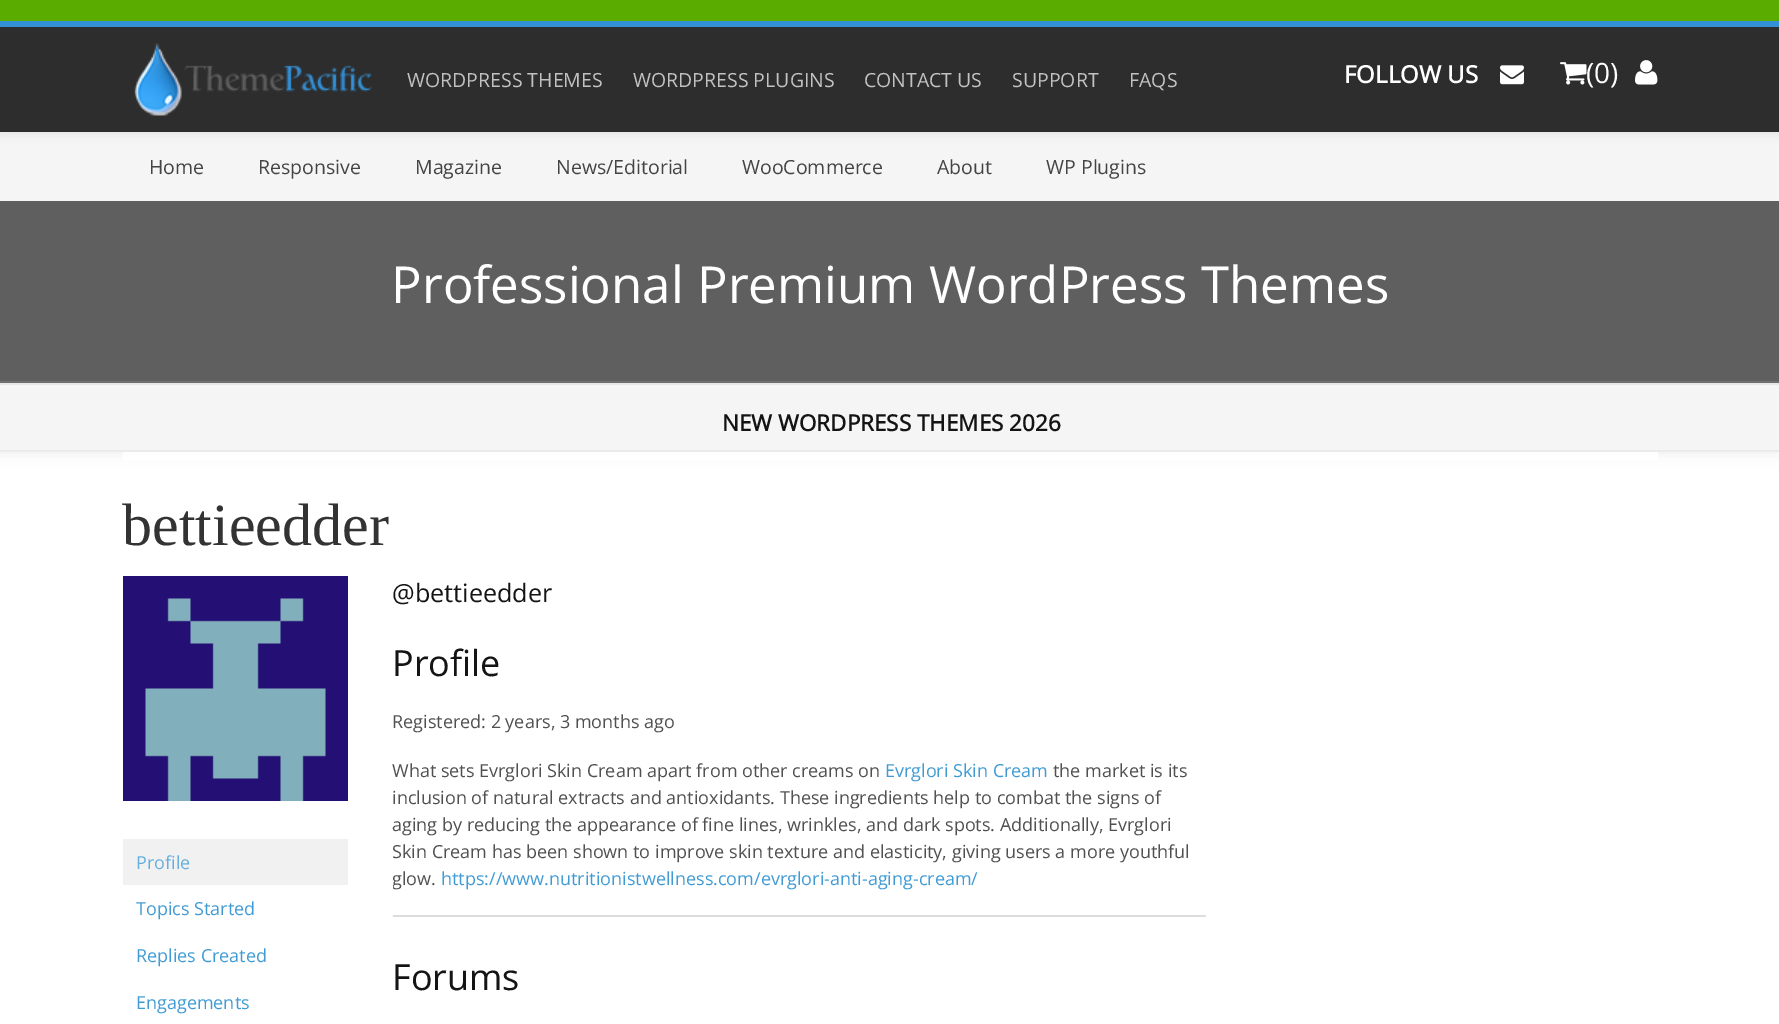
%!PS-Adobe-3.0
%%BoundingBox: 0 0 1779 1024
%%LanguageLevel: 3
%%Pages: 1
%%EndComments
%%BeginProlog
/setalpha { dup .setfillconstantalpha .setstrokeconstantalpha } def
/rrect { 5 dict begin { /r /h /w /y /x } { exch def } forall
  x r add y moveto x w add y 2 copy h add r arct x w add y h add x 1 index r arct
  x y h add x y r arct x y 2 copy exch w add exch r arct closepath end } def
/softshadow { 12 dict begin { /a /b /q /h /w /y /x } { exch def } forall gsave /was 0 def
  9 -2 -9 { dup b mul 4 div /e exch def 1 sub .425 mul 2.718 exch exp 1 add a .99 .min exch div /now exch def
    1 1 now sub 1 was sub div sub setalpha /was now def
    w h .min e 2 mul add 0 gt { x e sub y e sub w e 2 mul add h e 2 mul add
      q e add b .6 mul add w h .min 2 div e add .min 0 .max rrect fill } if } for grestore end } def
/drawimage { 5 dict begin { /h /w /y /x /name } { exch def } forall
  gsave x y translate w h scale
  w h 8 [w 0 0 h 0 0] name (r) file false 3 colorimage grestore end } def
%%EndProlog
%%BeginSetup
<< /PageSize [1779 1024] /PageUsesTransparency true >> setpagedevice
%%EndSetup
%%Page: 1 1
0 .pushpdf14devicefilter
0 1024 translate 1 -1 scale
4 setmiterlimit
1 setgray
0 0 1779 1024 rectfill
0.353 0.678 0 setrgbcolor
0 0 1779 21 rectfill
0.961 setgray
0 132 1779 69 rectfill
0.322 setgray
0 23 1779 111 0 4 0.1 softshadow
0.176 setgray
0 27 1779 105 rectfill
0.204 0.565 0.839 setrgbcolor
0 21 1779 6 rectfill
(images/1.raw) 134 43 239 73 drawimage
(images/2.raw) 1500 65 24 20 drawimage
(images/3.raw) 1560 62 27 23 drawimage
(images/4.raw) 1635 60 23 25 drawimage
0 setgray
0 383 1779 69 0 7.5 0.07 softshadow
0.373 setgray
0 201 1779 180 rectfill
0.435 setgray
0 381 1779 2 rectfill
0.961 setgray
0 385 1779 65 rectfill
0.902 setgray
0 383 1779 2 rectfill
0.922 setgray
0 450 1779 2 rectfill
1 setgray
123 452 1535 8 rectfill
(images/5.raw) 123 576 225 225 drawimage
0.945 setgray
123 839 225 46 rectfill
0.867 setgray
393 915 813 2 rectfill
/OpenSans-Regular [19.5 0 0 -19.5 0 0] selectfont
0.761 setgray
407 87 moveto (WORDPRESS THEMES) show
633 87 moveto (WORDPRESS PLUGINS) show
864 87 moveto (CONTACT US) show
1012 87 moveto (SUPPORT) show
1129 87 moveto (FAQS) show
/OpenSans-Bold [24 0 0 -24 0 0] selectfont
1 setgray
1344 83 moveto (FOLLOW US) show
/OpenSans-Regular [28 0 0 -28 0 0] selectfont
1586 83 moveto (\(0\)) show
/OpenSans-Regular [19.5 0 0 -19.5 0 0] selectfont
0.267 setgray
149 174 moveto (Home) show
258 174 moveto (Responsive) show
415 174 moveto (Magazine) show
556 174 moveto (News/Editorial) show
742 174 moveto (WooCommerce) show
937 174 moveto (About) show
1046 174 moveto (WP Plugins) show
/OpenSans-Regular [51 0 0 -51 0 0] selectfont
1 setgray
391 303 moveto (Professional Premium WordPress Themes) show
/OpenSans-Bold [22.5 0 0 -22.5 0 0] selectfont
0.078 setgray
722 431 moveto (NEW WORDPRESS THEMES 2026) show
/LiberationSerif-Regular [60 0 0 -60 0 0] selectfont
0.2 setgray
122 545 moveto (bettieedder) show
/OpenSans-Regular [18 0 0 -18 0 0] selectfont
0.4 0.686 0.867 setrgbcolor
136 869 moveto (Profile) show
0.251 0.608 0.831 setrgbcolor
136 915 moveto (Topics Started) show
136 962 moveto (Replies Created) show
136 1009 moveto (Engagements) show
/OpenSans-Regular [25.25 0 0 -25.25 0 0] selectfont
0.078 setgray
392 602 moveto (@bettieedder) show
/OpenSans-Regular [36 0 0 -36 0 0] selectfont
392 676 moveto (Profile) show
/OpenSans-Regular [18 0 0 -18 0 0] selectfont
0.314 setgray
392 728 moveto (Registered: 2 years, 3 months ago) show
392 777 moveto (What sets Evrglori Skin Cream apart from other creams on) show
0.251 0.608 0.831 setrgbcolor
885 777 moveto (Evrglori Skin Cream) show
0.314 setgray
1053 777 moveto (the market is its) show
392 804 moveto (inclusion of natural extracts and antioxidants. These ingredients help to combat the signs of) show
392 831 moveto (aging by reducing the appearance of fine lines, wrinkles, and dark spots. Additionally, Evrglori) show
392 858 moveto (Skin Cream has been shown to improve skin texture and elasticity, giving users a more youthful) show
gsave
393 624 813 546 rectclip
392 885 moveto (glow.) show
grestore
0.251 0.608 0.831 setrgbcolor
441 885 moveto (https://www.nutritionistwellness.com/evrglori-anti-aging-cream/) show
/OpenSans-Regular [36 0 0 -36 0 0] selectfont
0.078 setgray
392 990 moveto (Forums) show
.poppdf14devicefilter showpage
%%EOF
